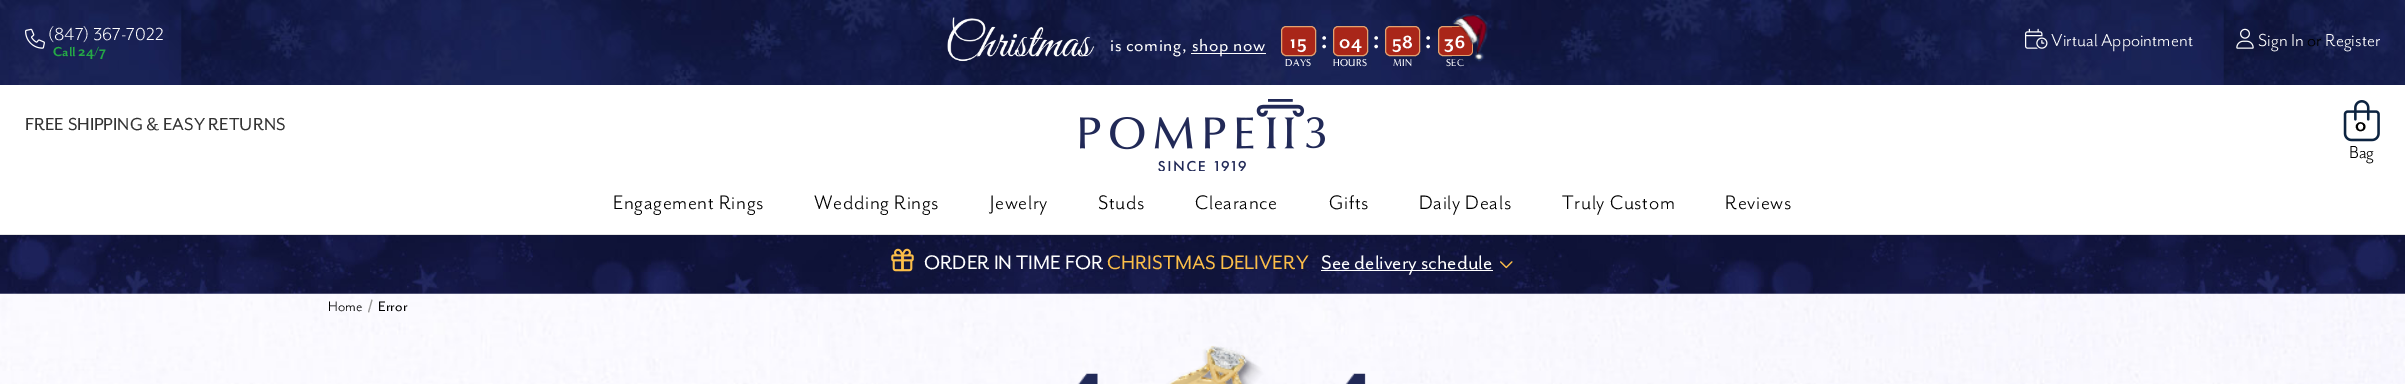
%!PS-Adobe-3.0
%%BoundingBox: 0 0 2405 384
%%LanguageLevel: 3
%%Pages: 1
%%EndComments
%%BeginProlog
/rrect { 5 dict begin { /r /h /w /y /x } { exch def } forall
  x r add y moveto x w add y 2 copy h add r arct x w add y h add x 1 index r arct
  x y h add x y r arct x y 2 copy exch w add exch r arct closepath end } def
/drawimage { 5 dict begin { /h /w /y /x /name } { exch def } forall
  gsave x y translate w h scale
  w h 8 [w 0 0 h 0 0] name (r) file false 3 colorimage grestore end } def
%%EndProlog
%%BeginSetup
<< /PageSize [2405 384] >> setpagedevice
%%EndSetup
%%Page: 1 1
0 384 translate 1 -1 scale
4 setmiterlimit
1 setgray
0 0 2405 384 rectfill
0.898 setgray
0 234 2405 1 rectfill
(images/2.raw) 0 0 2405 85 drawimage
(images/1.raw) 25 28 20 21 drawimage
(images/3.raw) 947 17 148 45 drawimage
1 setgray
1191 53 75 1 rectfill
0.663 0.149 0.098 setrgbcolor
1385.5 26.5 34 29 4.5 rrect gsave fill grestore
0.894 0.631 0.435 setrgbcolor
stroke
0.663 0.149 0.098 setrgbcolor
1281.5 26.5 34 29 4.5 rrect gsave fill grestore
0.894 0.631 0.435 setrgbcolor
stroke
0.663 0.149 0.098 setrgbcolor
1333.5 26.5 34 29 4.5 rrect gsave fill grestore
0.894 0.631 0.435 setrgbcolor
stroke
0.663 0.149 0.098 setrgbcolor
1438.5 26.5 34 29 4.5 rrect gsave fill grestore
0.894 0.631 0.435 setrgbcolor
stroke
(images/5.raw) 2025 28 23 21 drawimage
(images/6.raw) 2236 28 18 21 drawimage
(images/7.raw) 1080 99 245 72 drawimage
(images/8.raw) 2343 100 37 42 drawimage
(images/9.raw) 0 235 2405 59 drawimage
(images/10.raw) 891 248 23 24 drawimage
1 setgray
1321 270 172 1 rectfill
(images/11.raw) 1500 261 13 8 drawimage
(images/12.raw) 0 293 2405 91 drawimage
0.6 setgray
newpath 371.5 299.5 moveto 372.5 300 lineto 369 312.5 lineto 368 312 lineto closepath fill
(images/13.raw) 1077 345 289 39 drawimage
/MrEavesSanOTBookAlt-Regular [20 0 0 -20 0 0] selectfont
1 setgray
48 40 moveto (\(847\) 367-7022) show
/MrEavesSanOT-Bold [15 0 0 -15 0 0] selectfont
0.145 0.663 0.275 setrgbcolor
53 56 moveto (Call 24/7) show
/MrEavesSanOT-Regular [20 0 0 -20 0 0] selectfont
1 setgray
1110 51 moveto 0.6 0 (is coming,) ashow
1192 51 moveto 0.6 0 (shop now) ashow
/MrEavesSanOT-Bold [20 0 0 -20 0 0] selectfont
1392 48 moveto 0.6 0 (58) ashow
/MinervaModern-Bold [10 0 0 -10 0 0] selectfont
1393 66 moveto 0.6 0 (MIN) ashow
/MrEavesSanOT-Bold [20 0 0 -20 0 0] selectfont
1290 48 moveto 0.6 0 (15) ashow
/MinervaModern-Bold [10 0 0 -10 0 0] selectfont
1285 66 moveto 0.6 0 (DAYS) ashow
/MrEavesSanOT-Regular [35 0 0 -35 0 0] selectfont
1320 48 moveto 0.6 0 (:) ashow
/MrEavesSanOT-Bold [20 0 0 -20 0 0] selectfont
1339 48 moveto 0.6 0 (04) ashow
/MinervaModern-Bold [10 0 0 -10 0 0] selectfont
1333 66 moveto 0.6 0 (HOURS) ashow
/MrEavesSanOT-Regular [35 0 0 -35 0 0] selectfont
1372 48 moveto 0.6 0 (:) ashow
1424 48 moveto 0.6 0 (:) ashow
/MrEavesSanOT-Bold [20 0 0 -20 0 0] selectfont
1444 48 moveto 0.6 0 (36) ashow
/MinervaModern-Bold [10 0 0 -10 0 0] selectfont
1446 66 moveto 0.6 0 (SEC) ashow
(images/4.raw) 1452 13 36 49 drawimage
/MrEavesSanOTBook-Regular [20 0 0 -20 0 0] selectfont
2051 46 moveto (Virtual Appointment) show
2258 46 moveto (Sign In) show
0 setgray
2307 46 moveto (or) show
1 setgray
2325 46 moveto (Register) show
/MrEavesSanOT-Regular [20 0 0 -20 0 0] selectfont
0.2 setgray
25 130 moveto (FREE SHIPPING & EASY RETURNS) show
/MrEavesSanOT-Bold [20 0 0 -20 0 0] selectfont
0 setgray
2355 131 moveto (0) show
/MrEavesSanOTBook-Regular [20 0 0 -20 0 0] selectfont
2349 158 moveto (Bag) show
/MrEavesSanOTBook-Regular [22.5 0 0 -22.5 0 0] selectfont
613 209 moveto 0.6 0 (Engagement Rings) ashow
814 209 moveto 0.6 0 (Wedding Rings) ashow
990 209 moveto 0.6 0 (Jewelry) ashow
1098 209 moveto 0.6 0 (Studs) ashow
1195 209 moveto 0.6 0 (Clearance) ashow
1329 209 moveto 0.6 0 (Gifts) ashow
1419 209 moveto 0.6 0 (Daily Deals) ashow
1562 209 moveto 0.6 0 (Truly Custom) ashow
1725 209 moveto 0.6 0 (Reviews) ashow
/MrEavesSanOT-Regular [22.5 0 0 -22.5 0 0] selectfont
1 setgray
924 269 moveto (ORDER IN TIME FOR) show
0.988 0.745 0.286 setrgbcolor
1107 269 moveto (CHRISTMAS DELIVERY) show
1 setgray
1321 269 moveto (See delivery schedule) show
/MrEavesSanOTBook-Regular [16 0 0 -16 0 0] selectfont
0 setgray
328 311 moveto (Home) show
/MrEavesSanOT-Regular [16 0 0 -16 0 0] selectfont
378 311 moveto (Error) show
showpage
%%EOF
